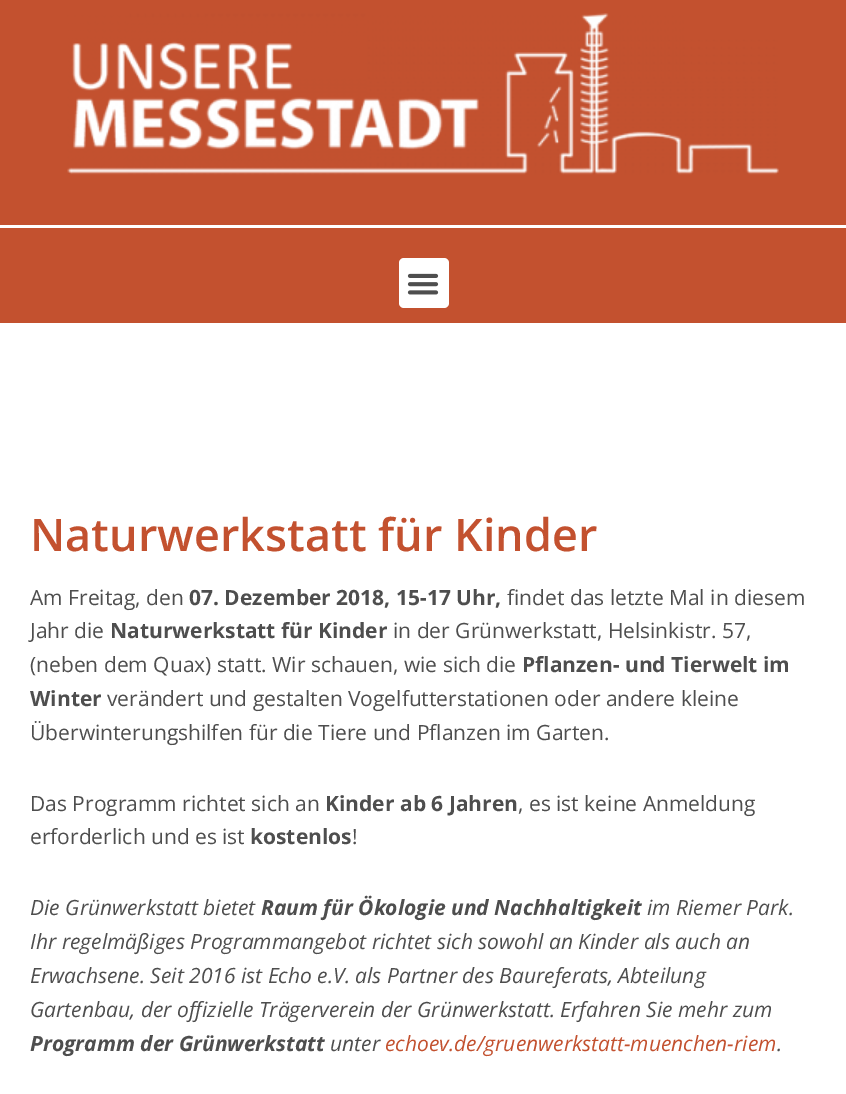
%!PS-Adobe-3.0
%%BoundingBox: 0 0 846 1094
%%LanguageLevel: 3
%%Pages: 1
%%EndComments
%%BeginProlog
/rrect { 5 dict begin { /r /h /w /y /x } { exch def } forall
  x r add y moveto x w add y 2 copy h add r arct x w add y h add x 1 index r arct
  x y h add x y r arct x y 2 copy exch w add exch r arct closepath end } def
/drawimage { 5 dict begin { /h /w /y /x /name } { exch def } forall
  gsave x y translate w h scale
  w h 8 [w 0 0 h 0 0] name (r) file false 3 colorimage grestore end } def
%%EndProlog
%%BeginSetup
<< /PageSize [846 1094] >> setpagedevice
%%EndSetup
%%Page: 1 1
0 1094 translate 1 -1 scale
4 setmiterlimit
1 setgray
0 0 846 1094 rectfill
0.765 0.318 0.184 setrgbcolor
0 0 846 323 rectfill
(images/1.raw) 67 13 712 162 drawimage
1 setgray
0 225 846 3 rectfill
399 258 50 50 5 rrect fill
(images/2.raw) 407 273 32 22 drawimage
/OpenSans-SemiBold [45 0 0 -45 0 0] selectfont
0.765 0.318 0.184 setrgbcolor
30 551 moveto (Naturwerkstatt für Kinder) show
/OpenSans-Regular [21 0 0 -21 0 0] selectfont
0.306 setgray
30 605 moveto (Am Freitag, den) show
/OpenSans-Bold [21 0 0 -21 0 0] selectfont
189 605 moveto (07. Dezember 2018, 15-17 Uhr,) show
/OpenSans-Regular [21 0 0 -21 0 0] selectfont
507 605 moveto (findet das letzte Mal in diesem) show
30 638 moveto (Jahr die) show
/OpenSans-Bold [21 0 0 -21 0 0] selectfont
110 638 moveto (Naturwerkstatt für Kinder) show
/OpenSans-Regular [21 0 0 -21 0 0] selectfont
393 638 moveto (in der Grünwerkstatt, Helsinkistr. 57,) show
30 672 moveto (\(neben dem Quax\) statt. Wir schauen, wie sich die) show
/OpenSans-Bold [21 0 0 -21 0 0] selectfont
522 672 moveto (Pflanzen- und Tierwelt im) show
30 706 moveto (Winter) show
/OpenSans-Regular [21 0 0 -21 0 0] selectfont
107 706 moveto (verändert und gestalten Vogelfutterstationen oder andere kleine) show
30 740 moveto (Überwinterungshilfen für die Tiere und Pflanzen im Garten.) show
30 811 moveto (Das Programm richtet sich an) show
/OpenSans-Bold [21 0 0 -21 0 0] selectfont
325 811 moveto (Kinder ab 6 Jahren) show
/OpenSans-Regular [21 0 0 -21 0 0] selectfont
518 811 moveto (, es ist keine Anmeldung) show
30 844 moveto (erforderlich und es ist) show
/OpenSans-Bold [21 0 0 -21 0 0] selectfont
250 844 moveto (kostenlos) show
/OpenSans-Regular [21 0 0 -21 0 0] selectfont
352 844 moveto (!) show
/OpenSans-Italic [21 0 0 -21 0 0] selectfont
30 915 moveto (Die Grünwerkstatt bietet) show
/OpenSans-BoldItalic [21 0 0 -21 0 0] selectfont
261 915 moveto (Raum für Ökologie und Nachhaltigkeit) show
/OpenSans-Italic [21 0 0 -21 0 0] selectfont
647 915 moveto (im Riemer Park.) show
30 949 moveto (Ihr regelmäßiges Programmangebot richtet sich sowohl an Kinder als auch an) show
30 983 moveto (Erwachsene. Seit 2016 ist Echo e.V. als Partner des Baureferats, Abteilung) show
30 1017 moveto (Gartenbau, der offizielle Trägerverein der Grünwerkstatt. Erfahren Sie mehr zum) show
/OpenSans-BoldItalic [21 0 0 -21 0 0] selectfont
30 1051 moveto (Programm der Grünwerkstatt) show
/OpenSans-Italic [21 0 0 -21 0 0] selectfont
330 1051 moveto (unter) show
0.765 0.318 0.184 setrgbcolor
385 1051 moveto (echoev.de/gruenwerkstatt-muenchen-riem) show
0.306 setgray
777 1051 moveto (.) show
showpage
%%EOF
